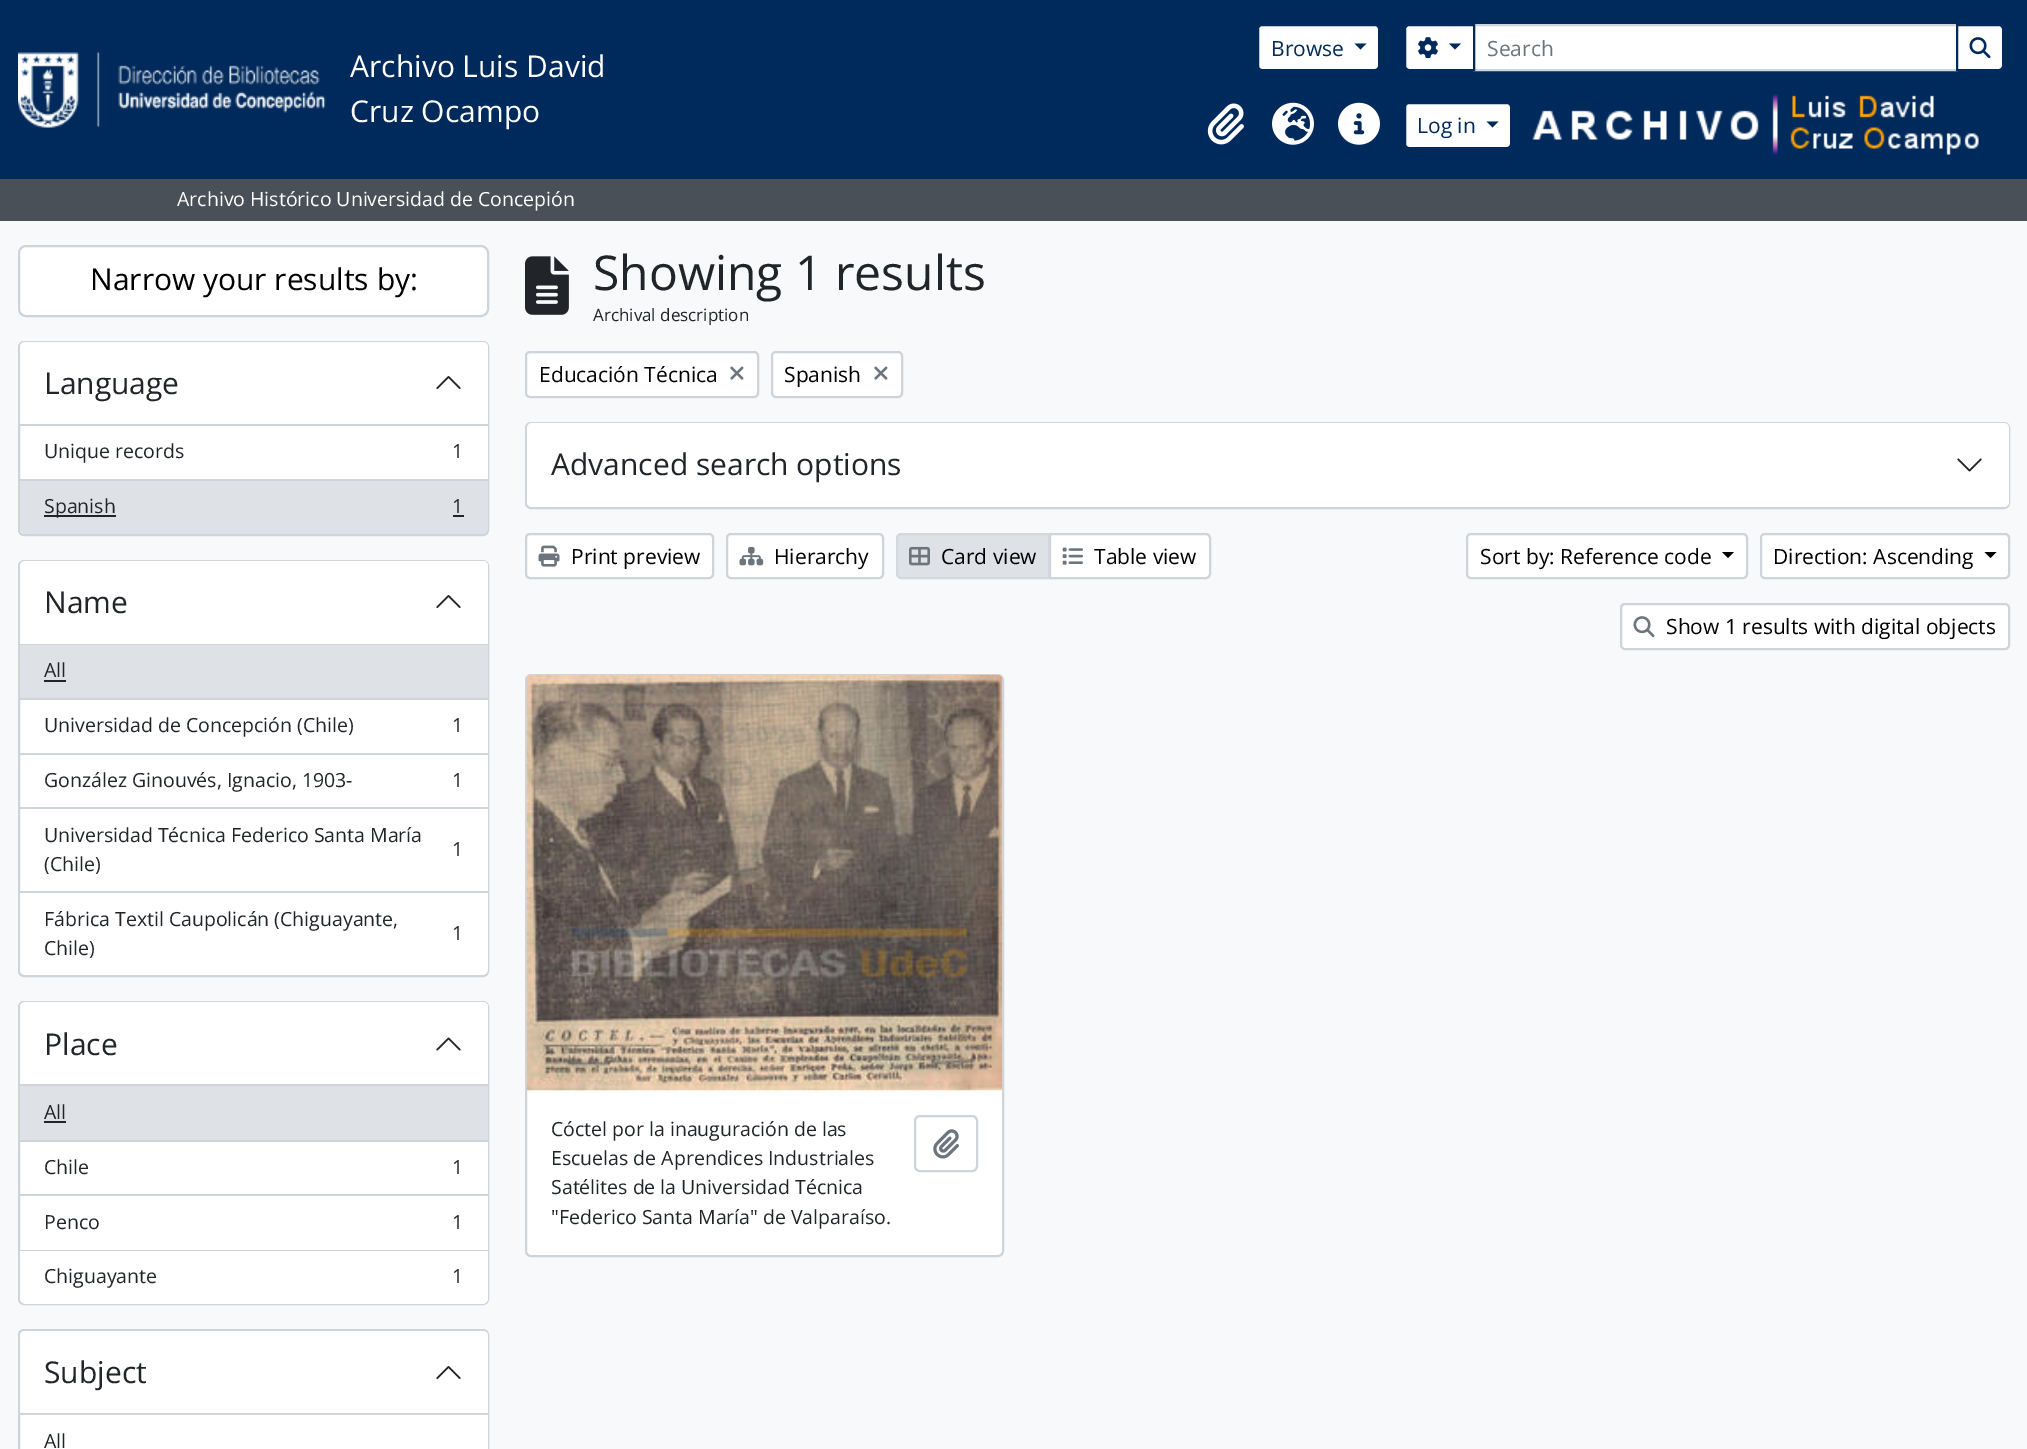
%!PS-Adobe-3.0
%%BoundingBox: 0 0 2027 1449
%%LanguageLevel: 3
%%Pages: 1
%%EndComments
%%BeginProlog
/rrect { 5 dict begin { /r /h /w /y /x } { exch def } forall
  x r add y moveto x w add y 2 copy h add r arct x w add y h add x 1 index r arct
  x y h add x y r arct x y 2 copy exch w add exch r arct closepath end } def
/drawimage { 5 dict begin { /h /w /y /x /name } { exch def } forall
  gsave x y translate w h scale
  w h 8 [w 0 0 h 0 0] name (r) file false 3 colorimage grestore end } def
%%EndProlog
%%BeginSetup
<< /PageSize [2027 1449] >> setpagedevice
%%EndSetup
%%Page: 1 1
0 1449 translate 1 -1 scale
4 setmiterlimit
0.973 0.976 0.98 setrgbcolor
0 0 2027 1449 rectfill
0 0.165 0.361 setrgbcolor
0 0 2027 179 rectfill
(images/1.raw) 18 52 308 76 drawimage
1 setgray
1258 25 121 45 4 rrect gsave fill grestore
0 0.165 0.361 setrgbcolor
2 setlinewidth
stroke
newpath 1354.5 43.5 moveto 1366.5 43.5 lineto 1360.5 49.5 lineto closepath fill
1 setgray
newpath 1474 25 moveto 1957 25 lineto 1957 70 lineto 1474 70 lineto closepath gsave fill grestore
0.808 0.831 0.855 setrgbcolor
stroke
1 setgray
newpath 1409 25 moveto 1474 25 lineto 1474 70 lineto 1409 70 lineto 1407 70 1405 68 1405 66 curveto 1405 29 lineto 1405 27 1407 25 1409 25 curveto closepath gsave fill grestore
0 0.165 0.361 setrgbcolor
stroke
(images/2.raw) 1418 37 20 22 drawimage
newpath 1449 43.5 moveto 1461 43.5 lineto 1455 49.5 lineto closepath fill
1 setgray
newpath 1957 25 moveto 1999 25 lineto 2001 25 2003 27 2003 29 curveto 2003 66 lineto 2003 68 2001 70 1999 70 curveto 1957 70 lineto closepath gsave fill grestore
0 0.165 0.361 setrgbcolor
stroke
(images/3.raw) 1969 37 22 22 drawimage
(images/4.raw) 1207 103 37 42 drawimage
(images/5.raw) 1272 102 42 43 drawimage
(images/6.raw) 1338 102 42 43 drawimage
1 setgray
1405 103 106 45 4 rrect gsave fill grestore
0 0.165 0.361 setrgbcolor
stroke
newpath 1486.5 121.5 moveto 1498.5 121.5 lineto 1492.5 127.5 lineto closepath fill
(images/7.raw) 1532 94 447 61 drawimage
0.286 0.314 0.341 setrgbcolor
0 179 2027 42 rectfill
1 setgray
19 246 469 70 7 rrect gsave fill grestore
0.808 0.831 0.855 setrgbcolor
stroke
1 setgray
19 342 469 193 5 rrect gsave fill grestore
0.808 0.831 0.855 setrgbcolor
stroke
1 setgray
newpath 25 342 moveto 483 342 lineto 486 342 488 344 488 347 curveto 488 426 lineto 20 426 lineto 20 347 lineto 20 344 22 342 25 342 curveto closepath fill
0.808 0.831 0.855 setrgbcolor
20 424 468 2 rectfill
(images/8.raw) 436 376 25 13 drawimage
1 setgray
487 426 1 53 rectfill
0.871 0.886 0.902 setrgbcolor
newpath 20 480 moveto 488 480 lineto 488 528 lineto 488 531.5 485.5 534 482 534 curveto 26 534 lineto 22.5 534 20 531.5 20 528 curveto closepath fill
0.808 0.831 0.855 setrgbcolor
20 479 468 2 rectfill
0.129 0.145 0.161 setrgbcolor
44 515 72 2 rectfill
453 515 11 2 rectfill
1 setgray
19 561 469 415 5 rrect gsave fill grestore
0.808 0.831 0.855 setrgbcolor
stroke
1 setgray
newpath 25 561 moveto 483 561 lineto 486 561 488 563 488 566 curveto 488 645 lineto 20 645 lineto 20 566 lineto 20 563 22 561 25 561 curveto closepath fill
0.808 0.831 0.855 setrgbcolor
20 644 468 1 rectfill
(images/8.raw) 436 595 25 13 drawimage
0.871 0.886 0.902 setrgbcolor
20 645 468 53 rectfill
0.808 0.831 0.855 setrgbcolor
20 698 468 2 rectfill
0.129 0.145 0.161 setrgbcolor
44 680 22 2 rectfill
1 setgray
487 700 1 53 rectfill
0.808 0.831 0.855 setrgbcolor
20 753 468 2 rectfill
1 setgray
487 755 1 52 rectfill
0.808 0.831 0.855 setrgbcolor
20 807 468 2 rectfill
1 setgray
487 809 1 82 rectfill
0.808 0.831 0.855 setrgbcolor
20 891 468 2 rectfill
1 setgray
newpath 20 893 moveto 488 893 lineto 488 969 lineto 488 972.5 485.5 975 482 975 curveto 26 975 lineto 22.5 975 20 972.5 20 969 curveto closepath fill
19 1002 469 302 5 rrect gsave fill grestore
0.808 0.831 0.855 setrgbcolor
stroke
1 setgray
newpath 25 1002 moveto 483 1002 lineto 486 1002 488 1004 488 1007 curveto 488 1086 lineto 20 1086 lineto 20 1007 lineto 20 1004 22 1002 25 1002 curveto closepath fill
0.808 0.831 0.855 setrgbcolor
20 1084 468 2 rectfill
(images/9.raw) 436 1037 25 14 drawimage
0.871 0.886 0.902 setrgbcolor
20 1086 468 54 rectfill
0.808 0.831 0.855 setrgbcolor
20 1140 468 2 rectfill
0.129 0.145 0.161 setrgbcolor
44 1121 22 2 rectfill
1 setgray
487 1142 1 52 rectfill
0.808 0.831 0.855 setrgbcolor
20 1194 468 2 rectfill
1 setgray
487 1196 1 54 rectfill
0.808 0.831 0.855 setrgbcolor
20 1250 468 1 rectfill
1 setgray
newpath 20 1251 moveto 488 1251 lineto 488 1298 lineto 488 1301.5 485.5 1304 482 1304 curveto 26 1304 lineto 22.5 1304 20 1301.5 20 1298 curveto closepath fill
19 1330 469 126 5 rrect gsave fill grestore
0.808 0.831 0.855 setrgbcolor
stroke
1 setgray
newpath 25 1331 moveto 483 1331 lineto 486 1331 488 1333 488 1336 curveto 488 1415 lineto 20 1415 lineto 20 1336 lineto 20 1333 22 1331 25 1331 curveto closepath fill
0.808 0.831 0.855 setrgbcolor
20 1413 468 2 rectfill
(images/8.raw) 436 1366 25 13 drawimage
1 setgray
487 1415 1 34 rectfill
(images/10.raw) 525 256 44 59 drawimage
526 352 232 45 4 rrect gsave fill grestore
0.808 0.831 0.855 setrgbcolor
stroke
(images/11.raw) 730 366 14 14 drawimage
1 setgray
772 352 130 45 4 rrect gsave fill grestore
0.808 0.831 0.855 setrgbcolor
stroke
(images/11.raw) 874 366 14 14 drawimage
1 setgray
526 423 1483 85 5 rrect gsave fill grestore
0.808 0.831 0.855 setrgbcolor
stroke
1 setgray
527 423 1482 84 5 rrect fill
(images/12.raw) 1957 458 25 14 drawimage
526 534 187 44 4 rrect gsave fill grestore
0.808 0.831 0.855 setrgbcolor
stroke
(images/13.raw) 538 545 22 22 drawimage
1 setgray
727 534 156 44 4 rrect gsave fill grestore
0.808 0.831 0.855 setrgbcolor
stroke
(images/14.raw) 739 546 25 20 drawimage
1 setgray
newpath 1050 534 moveto 1206 534 lineto 1208 534 1210 536 1210 538 curveto 1210 574 lineto 1210 576 1208 578 1206 578 curveto 1050 578 lineto closepath gsave fill grestore
0.808 0.831 0.855 setrgbcolor
stroke
0.871 0.886 0.902 setrgbcolor
newpath 901 534 moveto 1049 534 lineto 1049 578 lineto 901 578 lineto 899 578 897 576 897 574 curveto 897 538 lineto 897 536 899 534 901 534 curveto closepath gsave fill grestore
0.827 0.847 0.871 setrgbcolor
stroke
(images/15.raw) 909 546 21 20 drawimage
(images/16.raw) 1062 547 21 18 drawimage
1 setgray
1467 534 280 44 4 rrect gsave fill grestore
0.808 0.831 0.855 setrgbcolor
stroke
0 setgray
newpath 1722 552 moveto 1734 552 lineto 1728 558 lineto closepath fill
1 setgray
1761 534 248 44 4 rrect gsave fill grestore
0.808 0.831 0.855 setrgbcolor
stroke
0 setgray
newpath 1984.5 552 moveto 1996.5 552 lineto 1990.5 558 lineto closepath fill
1 setgray
1621 604 388 45 4 rrect gsave fill grestore
0.808 0.831 0.855 setrgbcolor
stroke
(images/17.raw) 1633 616 22 22 drawimage
1 setgray
526 675 477 581 5 rrect gsave fill grestore
0.808 0.831 0.855 setrgbcolor
stroke
(images/18.raw) 526 675 476 416 drawimage
915 1116 62 55 5 rrect stroke
(images/19.raw) 933 1129 26 30 drawimage
/OpenSans-Regular [30 0 0 -30 0 0] selectfont
1 setgray
350 77 moveto (Archivo Luis David) show
350 122 moveto (Cruz Ocampo) show
/OpenSans-Regular [21 0 0 -21 0 0] selectfont
0 0.165 0.361 setrgbcolor
1271 56 moveto (Browse) show
0.424 0.459 0.49 setrgbcolor
1487 56 moveto (Search) show
0 0.165 0.361 setrgbcolor
1417 133 moveto (Log in) show
/OpenSans-Regular [19.5 0 0 -19.5 0 0] selectfont
1 setgray
177 206 moveto (Archivo Histórico Universidad de Concepión) show
/OpenSans-Regular [30 0 0 -30 0 0] selectfont
0 setgray
90 290 moveto (Narrow your results by:) show
0.129 0.145 0.161 setrgbcolor
44 394 moveto (Language) show
/OpenSans-Regular [19.5 0 0 -19.5 0 0] selectfont
44 458 moveto (Unique records) show
452 458 moveto (1) show
44 513 moveto (Spanish) show
452 513 moveto (1) show
/OpenSans-Regular [30 0 0 -30 0 0] selectfont
44 613 moveto (Name) show
/OpenSans-Regular [19.5 0 0 -19.5 0 0] selectfont
44 677 moveto (All) show
44 732 moveto (Universidad de Concepción \(Chile\)) show
452 732 moveto (1) show
44 787 moveto (González Ginouvés, Ignacio, 1903-) show
452 787 moveto (1) show
44 842 moveto (Universidad Técnica Federico Santa María) show
452 856 moveto (1) show
44 871 moveto (\(Chile\)) show
44 926 moveto (Fábrica Textil Caupolicán \(Chiguayante,) show
452 940 moveto (1) show
44 955 moveto (Chile\)) show
/OpenSans-Regular [30 0 0 -30 0 0] selectfont
44 1055 moveto (Place) show
/OpenSans-Regular [19.5 0 0 -19.5 0 0] selectfont
44 1119 moveto (All) show
44 1174 moveto (Chile) show
452 1174 moveto (1) show
44 1229 moveto (Penco) show
452 1229 moveto (1) show
44 1283 moveto (Chiguayante) show
452 1283 moveto (1) show
/OpenSans-Regular [30 0 0 -30 0 0] selectfont
44 1383 moveto (Subject) show
/OpenSans-Regular [19.5 0 0 -19.5 0 0] selectfont
44 1448 moveto (All) show
/OpenSans-Regular [48 0 0 -48 0 0] selectfont
593 290 moveto (Showing 1 results) show
/OpenSans-Regular [17 0 0 -17 0 0] selectfont
593 321 moveto (Archival description) show
/OpenSans-Regular [21 0 0 -21 0 0] selectfont
0 setgray
539 382 moveto (Educación Técnica) show
784 382 moveto (Spanish) show
/OpenSans-Regular [30 0 0 -30 0 0] selectfont
0.129 0.145 0.161 setrgbcolor
551 475 moveto (Advanced search options) show
/OpenSans-Regular [21 0 0 -21 0 0] selectfont
0 setgray
571 564 moveto (Print preview) show
774 564 moveto (Hierarchy) show
941 564 moveto (Card view) show
1094 564 moveto (Table view) show
1480 564 moveto (Sort by: Reference code) show
1773 564 moveto (Direction: Ascending) show
1666 634 moveto (Show 1 results with digital objects) show
/OpenSans-Regular [19.5 0 0 -19.5 0 0] selectfont
0.129 0.145 0.161 setrgbcolor
551 1136 moveto (Cóctel por la inauguración de las) show
551 1165 moveto (Escuelas de Aprendices Industriales) show
551 1194 moveto (Satélites de la Universidad Técnica) show
551 1224 moveto ("Federico Santa María" de Valparaíso.) show
showpage
%%EOF
